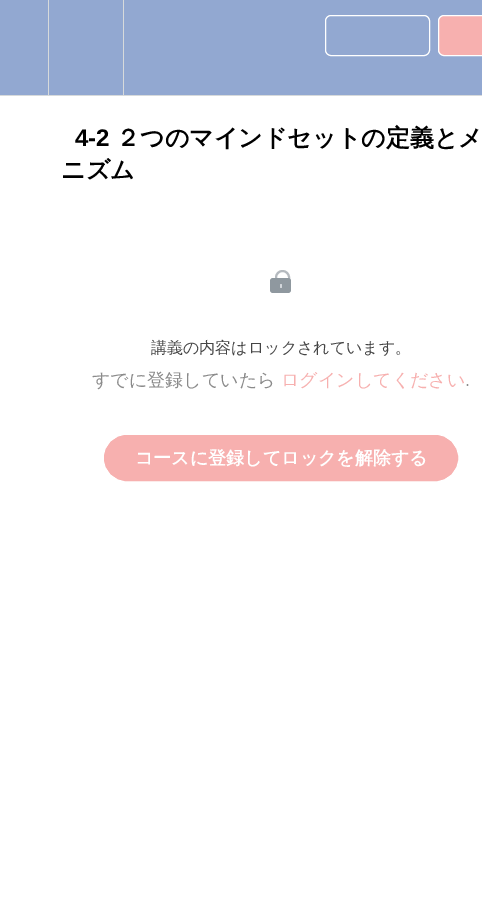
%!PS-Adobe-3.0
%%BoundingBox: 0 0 482 911
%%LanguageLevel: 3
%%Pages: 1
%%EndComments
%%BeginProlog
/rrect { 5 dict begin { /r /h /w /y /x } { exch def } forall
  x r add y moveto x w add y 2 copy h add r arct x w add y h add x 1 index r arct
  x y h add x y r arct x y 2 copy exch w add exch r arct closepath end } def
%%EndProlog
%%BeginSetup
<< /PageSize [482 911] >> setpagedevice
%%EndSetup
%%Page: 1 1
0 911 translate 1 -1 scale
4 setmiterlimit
1 setgray
0 0 482 911 rectfill
0.573 0.659 0.82 setrgbcolor
0 0 482 95 rectfill
0.843 0.855 0.859 setrgbcolor
0 95 482 1 rectfill
123 0 1 95 rectfill
48 0 1 95 rectfill
1 setgray
325.5 15.5 104 40 5.5 rrect stroke
0.969 0.69 0.686 setrgbcolor
438.5 15.5 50 40 5.5 rrect gsave fill grestore
1 setgray
stroke
0.71 0.729 0.749 setrgbcolor
2 setlinewidth
276 271 13 20 6.5 rrect stroke
0.561 0.596 0.624 setrgbcolor
270 278 21 15 3 rrect fill
0.827 0.843 0.863 setrgbcolor
280 284 2 4 1 rrect fill
0.969 0.69 0.686 setrgbcolor
104.5 435.5 353 45 22.5 rrect gsave fill grestore
1 setlinewidth
stroke
/LiberationSans-Bold [24 0 0 -24 0 0] selectfont
0 setgray
75 146 moveto (4-2) show
/WenQuanYiZenHei-Bold [24 0 0 -24 0 0] selectfont
116 146 moveto (２つのマインドセットの定義とメ) show
61 178 moveto (ニズム) show
/WenQuanYiZenHei-Medium [16 0 0 -16 0 0] selectfont
0.271 setgray
151 353 moveto (講義の内容はロックされています。) show
/WenQuanYiZenHei-Medium [18 0 0 -18 0 0] selectfont
0.545 setgray
92 386 moveto (すでに登録していたら) show
0.969 0.69 0.686 setrgbcolor
281 386 moveto (ログインしてください) show
/LiberationSans-Regular [18 0 0 -18 0 0] selectfont
0.545 setgray
465 386 moveto (.) show
/WenQuanYiZenHei-Bold [18 0 0 -18 0 0] selectfont
1 setgray
135 464 moveto (コースに登録してロックを解除する) show
showpage
%%EOF
